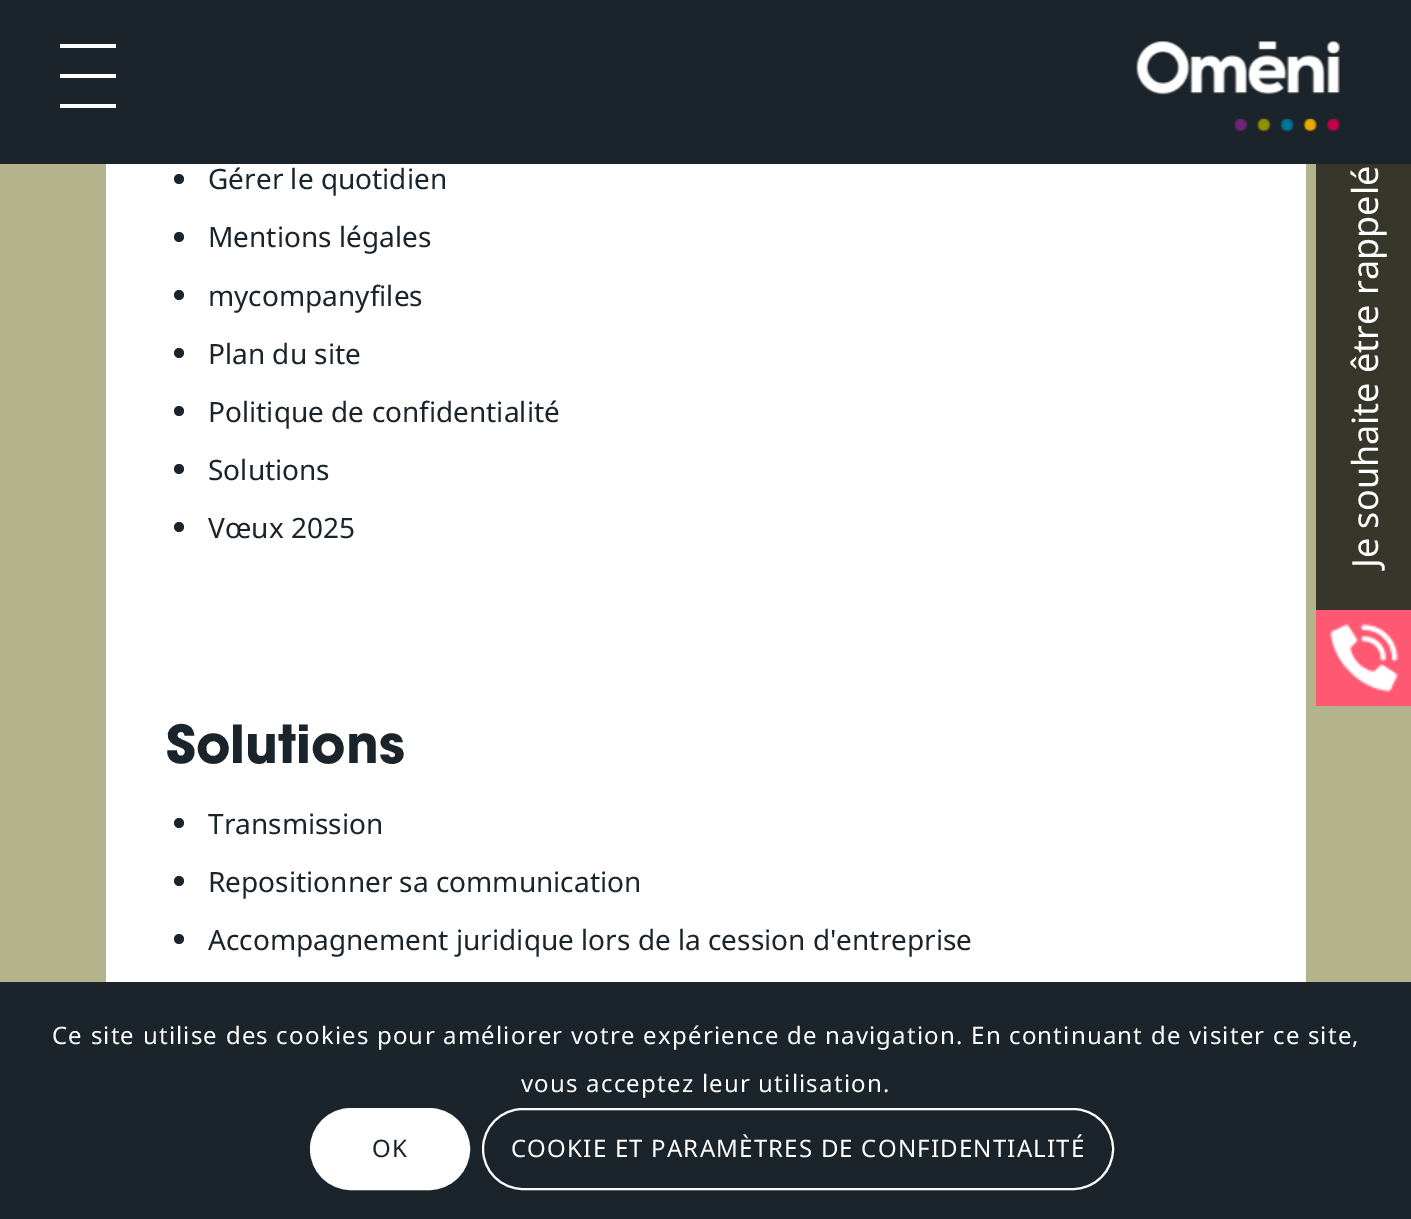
%!PS-Adobe-3.0
%%BoundingBox: 0 0 1411 1219
%%LanguageLevel: 3
%%Pages: 1
%%EndComments
%%BeginProlog
/rrect { 5 dict begin { /r /h /w /y /x } { exch def } forall
  x r add y moveto x w add y 2 copy h add r arct x w add y h add x 1 index r arct
  x y h add x y r arct x y 2 copy exch w add exch r arct closepath end } def
/drawimage { 5 dict begin { /h /w /y /x /name } { exch def } forall
  gsave x y translate w h scale
  w h 8 [w 0 0 h 0 0] name (r) file false 3 colorimage grestore end } def
%%EndProlog
%%BeginSetup
<< /PageSize [1411 1219] >> setpagedevice
%%EndSetup
%%Page: 1 1
0 1219 translate 1 -1 scale
4 setmiterlimit
0.702 0.702 0.549 setrgbcolor
0 0 1411 1219 rectfill
1 setgray
106 164 1200 818 rectfill
0.106 0.141 0.165 setrgbcolor
newpath 179 179 5 0 360 arc closepath fill
newpath 179 237 5 0 360 arc closepath fill
newpath 179 295 5 0 360 arc closepath fill
newpath 179 353 5 0 360 arc closepath fill
newpath 179 411 5 0 360 arc closepath fill
newpath 179 469 5 0 360 arc closepath fill
newpath 179 527 5 0 360 arc closepath fill
newpath 179 823 5 0 360 arc closepath fill
newpath 179 881 5 0 360 arc closepath fill
newpath 179 939 5 0 360 arc closepath fill
1 0.345 0.451 setrgbcolor
1316 610 95 96 rectfill
(images/2.raw) 1329 623 70 70 drawimage
0.212 0.212 0.165 setrgbcolor
1316 164 95 446 rectfill
0.106 0.141 0.165 setrgbcolor
0 982 1411 237 rectfill
1 setgray
311 1109 158 80 40 rrect gsave fill grestore
2 setlinewidth
stroke
483 1109 630 80 40 rrect stroke
/NotoSans-Regular [28 0 0 -28 0 0] selectfont
0.106 0.141 0.165 setrgbcolor
208 189 moveto (Gérer le quotidien) show
208 247 moveto (Mentions légales) show
208 306 moveto (mycompanyfiles) show
208 364 moveto (Plan du site) show
208 422 moveto (Politique de confidentialité) show
208 480 moveto (Solutions) show
208 538 moveto (Vœux 2025) show
/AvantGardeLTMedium-Bold [52 0 0 -52 0 0] selectfont
166 763 moveto (Solutions) show
/NotoSans-Regular [28 0 0 -28 0 0] selectfont
208 834 moveto (Transmission) show
208 892 moveto (Repositionner sa communication) show
208 950 moveto (Accompagnement juridique lors de la cession d'entreprise) show
/NotoSans-Regular [36 0 0 -36 0 0] selectfont
1 setgray
gsave 1378 568 translate -90 rotate 0 0 moveto (Je souhaite être rappelé.e) show grestore
0.106 0.141 0.165 setrgbcolor
0 0 1411 164 rectfill
1 setgray
60 44 56 4 rectfill
60 104 56 4 rectfill
60 74 56 4 rectfill
(images/1.raw) 1136 41 204 91 drawimage
/NotoSans-Regular [24 0 0 -24 0 0] selectfont
52 1044 moveto 1.2 0 (Ce site utilise des cookies pour améliorer votre expérience de navigation. En continuant de visiter ce site,) ashow
521 1092 moveto 1.2 0 (vous acceptez leur utilisation.) ashow
0.106 0.141 0.165 setrgbcolor
372 1157 moveto 1.2 0 (OK) ashow
1 setgray
511 1157 moveto 1.2 0 (COOKIE ET PARAMÈTRES DE CONFIDENTIALITÉ) ashow
showpage
%%EOF
